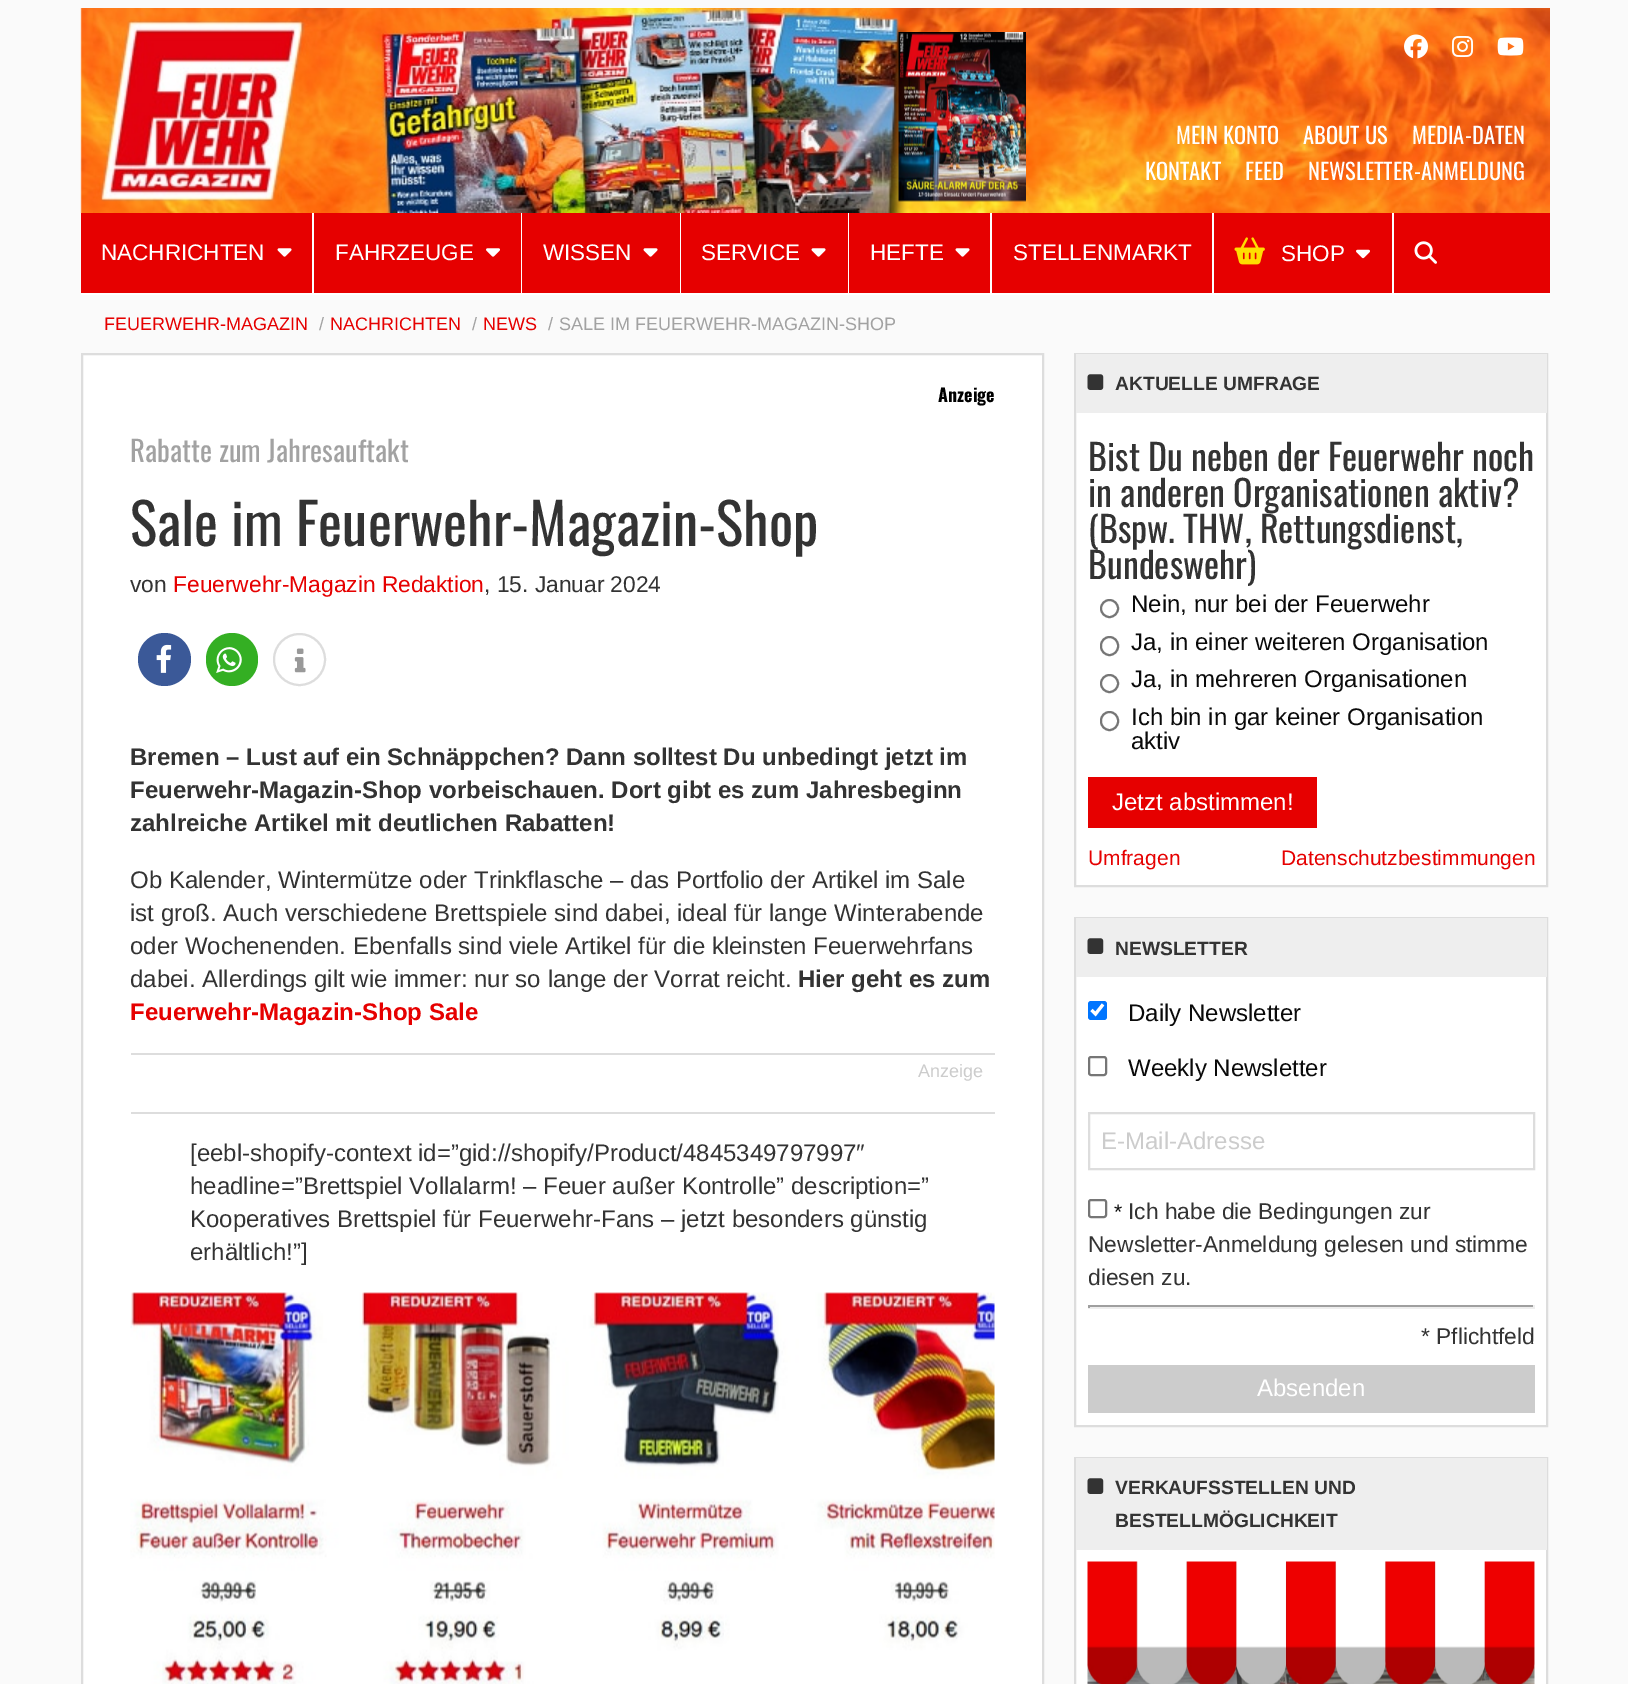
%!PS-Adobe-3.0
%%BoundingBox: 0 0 1628 1684
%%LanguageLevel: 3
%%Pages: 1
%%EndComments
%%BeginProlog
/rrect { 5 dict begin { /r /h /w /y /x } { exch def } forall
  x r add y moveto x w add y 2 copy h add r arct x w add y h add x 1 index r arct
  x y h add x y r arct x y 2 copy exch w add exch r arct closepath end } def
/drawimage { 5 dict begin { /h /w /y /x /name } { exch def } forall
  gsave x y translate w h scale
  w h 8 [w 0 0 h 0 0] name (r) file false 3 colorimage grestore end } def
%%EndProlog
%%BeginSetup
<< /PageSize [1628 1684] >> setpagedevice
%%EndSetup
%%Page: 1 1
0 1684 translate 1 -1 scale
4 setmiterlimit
0.98 setgray
0 0 1628 1684 rectfill
(images/1.raw) 80 8 1470 205 drawimage
(images/2.raw) 898 32 128 170 drawimage
(images/3.raw) 1404 34 24 25 drawimage
(images/4.raw) 1452 36 21 21 drawimage
(images/5.raw) 1497 37 27 19 drawimage
0.902 0 0 setrgbcolor
81 213 1469 80 rectfill
1 setgray
81 293 1469 2 rectfill
312 213 2 80 rectfill
(images/6.raw) 277 248 15 9 drawimage
521 213 1 80 rectfill
(images/7.raw) 486 248 14 9 drawimage
680 213 1 80 rectfill
(images/6.raw) 643 248 15 9 drawimage
848 213 1 80 rectfill
(images/6.raw) 811 248 15 9 drawimage
990 213 2 80 rectfill
(images/6.raw) 955 248 15 9 drawimage
1212 213 2 80 rectfill
1392 213 2 80 rectfill
(images/8.raw) 1234 237 31 28 drawimage
(images/9.raw) 1356 249 14 10 drawimage
(images/10.raw) 1414 241 23 23 drawimage
newpath 82 354 moveto 1043 354 lineto 1043 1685 lineto 82 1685 lineto closepath gsave fill grestore
0.867 setgray
2 setlinewidth
stroke
0.231 0.349 0.596 setrgbcolor
newpath 164.5 659.5 26.5 0 360 arc closepath fill
(images/11.raw) 156 644 16 29 drawimage
0.204 0.686 0.137 setrgbcolor
206 633 52 53 26 rrect fill
(images/12.raw) 216 647 26 26 drawimage
0.867 setgray
newpath 299.5 659.5 25.5 0 360 arc closepath stroke
(images/13.raw) 294 648 12 25 drawimage
131 1053 864 2 rectfill
131 1112 864 2 rectfill
(images/14.raw) 130 1292 865 392 drawimage
1 setgray
1076 413 470 472 rectfill
0.867 setgray
1075 354 472 532 rectstroke
0.933 setgray
1076 354 471 59 rectfill
(images/15.raw) 1087 374 17 16 drawimage
0.463 setgray
newpath 1109.5 608.5 8.5 0 360 arc closepath stroke
1101 637 17 18 8.5 rrect stroke
newpath 1109.5 683.5 8.5 0 360 arc closepath stroke
1101 712 17 18 8.5 rrect stroke
0.902 0 0 setrgbcolor
1088 777 229 51 rectfill
1 setgray
1076 977 470 448 rectfill
0.867 setgray
1075 918 472 508 rectstroke
0.933 setgray
1076 918 471 59 rectfill
(images/15.raw) 1087 938 17 16 drawimage
0 0.459 1 setrgbcolor
1088 1001 19 19 3 rrect fill
1 setgray
3.1 setlinewidth
newpath 1091.5 1010 moveto 1095.5 1014 lineto 1103 1004.5 lineto stroke
0.463 setgray
2 setlinewidth
1089 1057 17 18 2 rrect stroke
0.867 setgray
1089 1113 445 56 rectstroke
0.463 setgray
1089 1200 17 17 2 rrect stroke
0.624 setgray
1088 1305 447 2 rectfill
0.933 setgray
1533 1305 2 3 rectfill
1088 1307 447 2 rectfill
0.624 setgray
1088 1305 2 3 rectfill
0.8 setgray
1088 1365 447 48 rectfill
1 setgray
1076 1550 470 134 rectfill
0.867 setgray
1075 1458 472 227 rectstroke
0.933 setgray
1076 1458 471 92 rectfill
(images/15.raw) 1087 1478 17 16 drawimage
(images/16.raw) 1087 1561 448 123 drawimage
/Oswald-Regular [22.5 0 0 -22.5 0 0] selectfont
1 setgray
1176 144 moveto (MEIN KONTO) show
1303 144 moveto (ABOUT US) show
1412 144 moveto (MEDIA-DATEN) show
1145 180 moveto (KONTAKT) show
1245 180 moveto (FEED) show
1308 180 moveto (NEWSLETTER-ANMELDUNG) show
/LiberationSans-Regular [22.5 0 0 -22.5 0 0] selectfont
101 260 moveto (NACHRICHTEN) show
335 260 moveto (FAHRZEUGE) show
543 260 moveto (WISSEN) show
701 260 moveto (SERVICE) show
870 260 moveto (HEFTE) show
1013 260 moveto (STELLENMARKT) show
1281 261 moveto (SHOP) show
/LiberationSans-Regular [18 0 0 -18 0 0] selectfont
0.902 0 0 setrgbcolor
104 330 moveto (FEUERWEHR-MAGAZIN) show
0.635 setgray
319 330 moveto (/) show
0.902 0 0 setrgbcolor
330 330 moveto (NACHRICHTEN) show
0.635 setgray
472 330 moveto (/) show
0.902 0 0 setrgbcolor
483 330 moveto (NEWS) show
0.635 setgray
548 330 moveto (/) show
559 330 moveto (SALE IM FEUERWEHR-MAGAZIN-SHOP) show
/Oswald-Bold [18 0 0 -18 0 0] selectfont
0 setgray
938 402 moveto (Anzeige) show
/Oswald-Regular [28.75 0 0 -28.75 0 0] selectfont
0.635 setgray
130 462 moveto (Rabatte zum Jahresauftakt) show
/Oswald-Regular [57 0 0 -57 0 0] selectfont
0.2 setgray
130 546 moveto (Sale im Feuerwehr-Magazin-Shop) show
/LiberationSans-Regular [22.75 0 0 -22.75 0 0] selectfont
130 592 moveto (von) show
0.902 0 0 setrgbcolor
173 592 moveto (Feuerwehr-Magazin Redaktion) show
0.2 setgray
484 592 moveto (, 15. Januar 2024) show
/LiberationSans-Bold [24 0 0 -24 0 0] selectfont
130 765 moveto (Bremen – Lust auf ein Schnäppchen? Dann solltest Du unbedingt jetzt im) show
130 798 moveto (Feuerwehr-Magazin-Shop vorbeischauen. Dort gibt es zum Jahresbeginn) show
130 831 moveto (zahlreiche Artikel mit deutlichen Rabatten!) show
/LiberationSans-Regular [24 0 0 -24 0 0] selectfont
130 888 moveto (Ob Kalender, Wintermütze oder Trinkflasche – das Portfolio der Artikel im Sale) show
130 921 moveto (ist groß. Auch verschiedene Brettspiele sind dabei, ideal für lange Winterabende) show
130 954 moveto (oder Wochenenden. Ebenfalls sind viele Artikel für die kleinsten Feuerwehrfans) show
130 987 moveto (dabei. Allerdings gilt wie immer: nur so lange der Vorrat reicht.) show
/LiberationSans-Bold [24 0 0 -24 0 0] selectfont
798 987 moveto (Hier geht es zum) show
0.902 0 0 setrgbcolor
130 1020 moveto (Feuerwehr-Magazin-Shop Sale) show
/LiberationSans-Regular [18 0 0 -18 0 0] selectfont
0.8 setgray
918 1077 moveto (Anzeige) show
/LiberationSans-Regular [24 0 0 -24 0 0] selectfont
0.2 setgray
190 1161 moveto ([eebl-shopify-context id=”gid://shopify/Product/4845349797997″) show
190 1194 moveto (headline=”Brettspiel Vollalarm! – Feuer außer Kontrolle” description=”) show
190 1227 moveto (Kooperatives Brettspiel für Feuerwehr-Fans – jetzt besonders günstig) show
190 1260 moveto (erhältlich!”]) show
/LiberationSans-Bold [19.25 0 0 -19.25 0 0] selectfont
1115 390 moveto (AKTUELLE UMFRAGE) show
/Oswald-Regular [36 0 0 -36 0 0] selectfont
1088 471 moveto (Bist Du neben der Feuerwehr noch) show
1088 507 moveto (in anderen Organisationen aktiv?) show
1088 543 moveto (\(Bspw. THW, Rettungsdienst,) show
1088 579 moveto (Bundeswehr\)) show
/LiberationSans-Regular [24 0 0 -24 0 0] selectfont
0.039 setgray
1131 612 moveto (Nein, nur bei der Feuerwehr) show
1131 650 moveto (Ja, in einer weiteren Organisation) show
1131 687 moveto (Ja, in mehreren Organisationen) show
1131 725 moveto (Ich bin in gar keiner Organisation) show
1131 749 moveto (aktiv) show
1 setgray
1112 810 moveto (Jetzt abstimmen!) show
/LiberationSans-Regular [21 0 0 -21 0 0] selectfont
0.902 0 0 setrgbcolor
1088 865 moveto (Umfragen) show
1281 865 moveto (Datenschutzbestimmungen) show
/LiberationSans-Bold [19.25 0 0 -19.25 0 0] selectfont
0.2 setgray
1115 955 moveto (NEWSLETTER) show
/LiberationSans-Regular [24 0 0 -24 0 0] selectfont
0.039 setgray
1128 1021 moveto (Daily Newsletter) show
1128 1076 moveto (Weekly Newsletter) show
0.8 setgray
1101 1149 moveto (E-Mail-Adresse) show
/LiberationSans-Regular [21 0 0 -21 0 0] selectfont
0.039 setgray
1114 1219 moveto (*) show
/LiberationSans-Regular [22.75 0 0 -22.75 0 0] selectfont
0.2 setgray
1128 1219 moveto (Ich habe die Bedingungen zur) show
1088 1252 moveto (Newsletter-Anmeldung gelesen und stimme) show
1088 1285 moveto (diesen zu.) show
1421 1344 moveto (* Pflichtfeld) show
/LiberationSans-Regular [24 0 0 -24 0 0] selectfont
1 setgray
1257 1396 moveto (Absenden) show
/LiberationSans-Bold [19.25 0 0 -19.25 0 0] selectfont
0.2 setgray
1115 1494 moveto (VERKAUFSSTELLEN UND) show
1115 1527 moveto (BESTELLMÖGLICHKEIT) show
showpage
%%EOF
